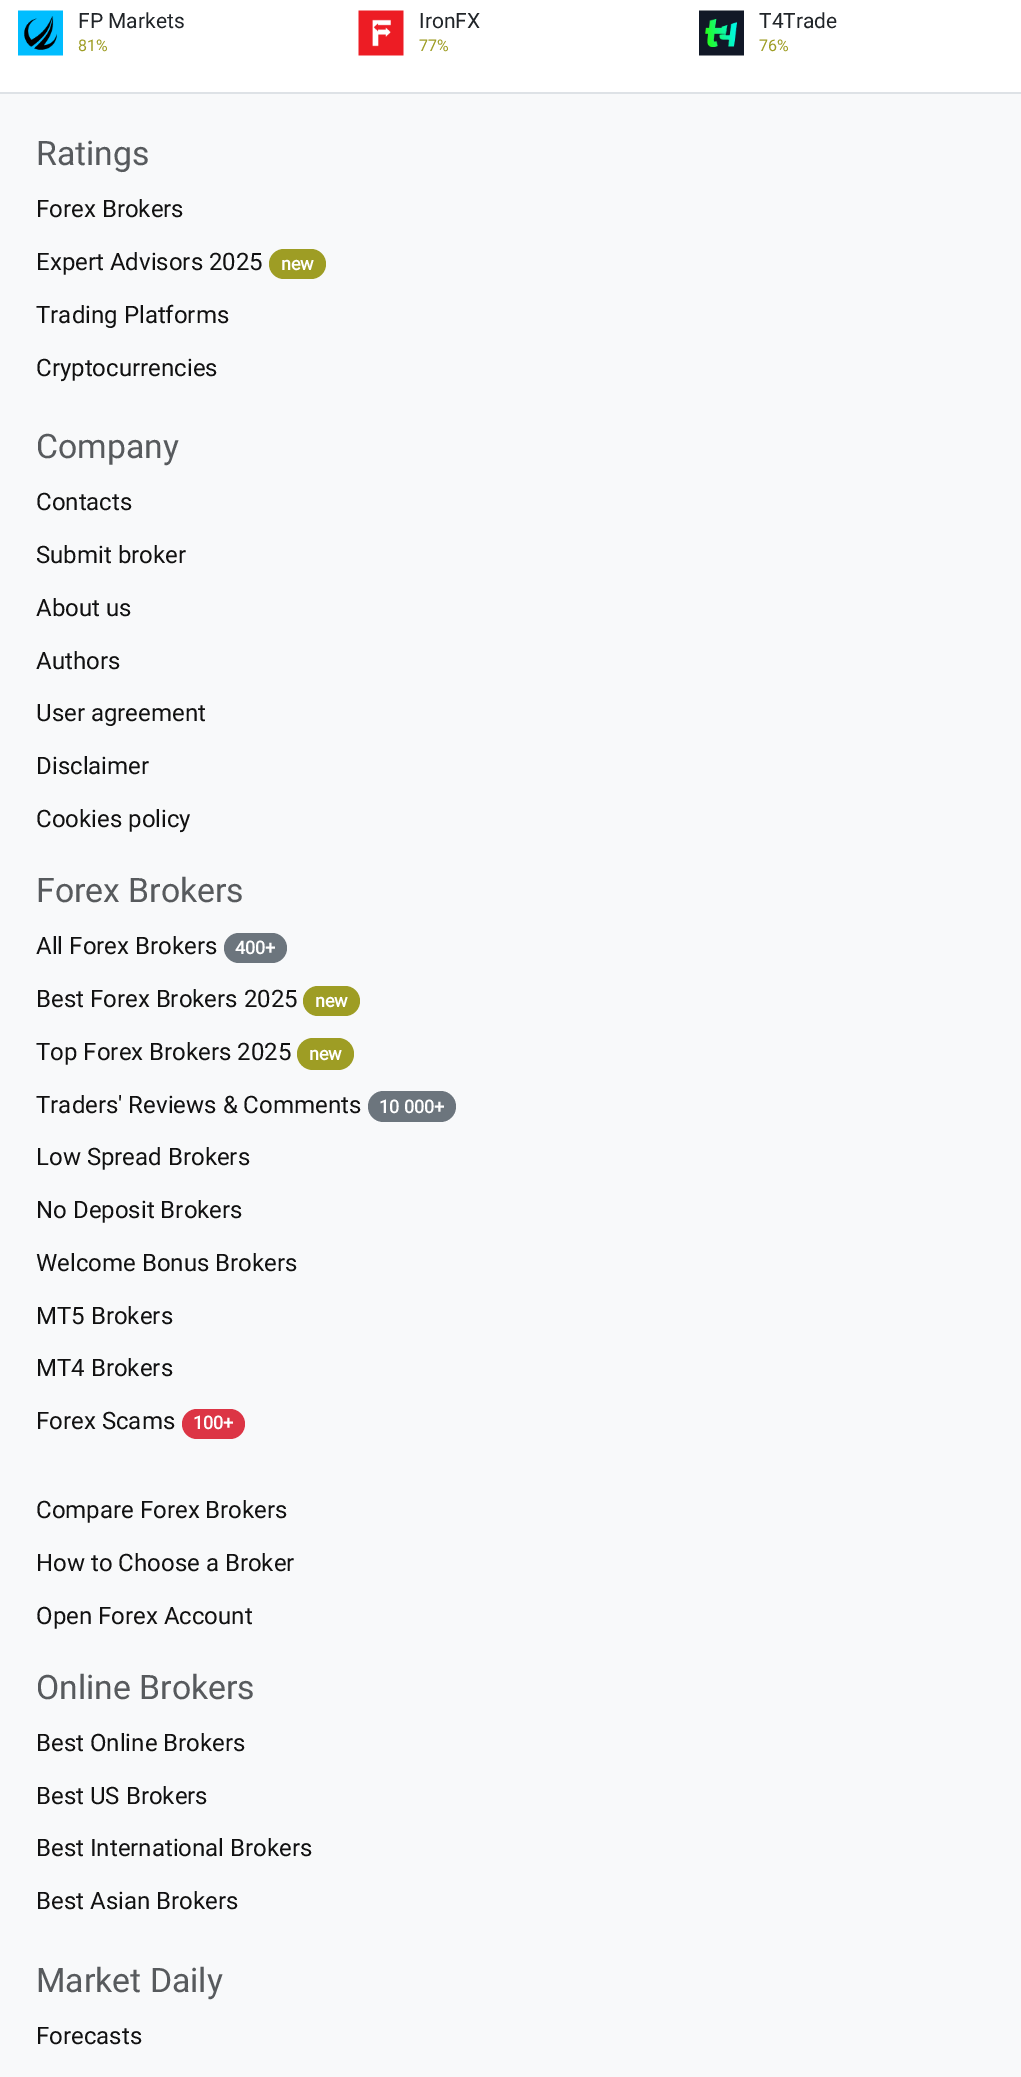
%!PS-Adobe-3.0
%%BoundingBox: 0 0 1021 2077
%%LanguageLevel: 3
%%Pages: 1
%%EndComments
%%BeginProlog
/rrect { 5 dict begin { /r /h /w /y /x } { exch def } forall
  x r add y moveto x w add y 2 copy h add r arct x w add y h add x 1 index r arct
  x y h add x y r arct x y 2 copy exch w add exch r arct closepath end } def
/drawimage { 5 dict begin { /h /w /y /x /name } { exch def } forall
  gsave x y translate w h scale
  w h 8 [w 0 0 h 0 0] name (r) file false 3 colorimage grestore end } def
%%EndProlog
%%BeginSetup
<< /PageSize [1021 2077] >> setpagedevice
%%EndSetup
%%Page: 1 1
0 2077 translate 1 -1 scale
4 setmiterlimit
1 setgray
0 0 1021 2077 rectfill
(images/1.raw) 18 10 45 46 drawimage
(images/2.raw) 358 10 46 46 drawimage
(images/3.raw) 699 10 45 46 drawimage
0.973 0.976 0.98 setrgbcolor
0 94 1021 1983 rectfill
0.871 0.886 0.902 setrgbcolor
0 92 1021 2 rectfill
0.62 0.616 0.141 setrgbcolor
269 249 57 30 15 rrect fill
0.424 0.459 0.49 setrgbcolor
224 933 63 30 15 rrect fill
0.62 0.616 0.141 setrgbcolor
303 986 57 30 15 rrect fill
297 1038 57 32 16 rrect fill
0.424 0.459 0.49 setrgbcolor
368 1091 88 31 15.5 rrect fill
0.863 0.208 0.271 setrgbcolor
182 1409 63 30 15 rrect fill
/Roboto-Regular [21 0 0 -21 0 0] selectfont
0.129 0.145 0.161 setrgbcolor
78 28 moveto (FP Markets) show
/Roboto-Regular [16 0 0 -16 0 0] selectfont
0.62 0.616 0.141 setrgbcolor
78 51 moveto (81%) show
/Roboto-Regular [21 0 0 -21 0 0] selectfont
0.129 0.145 0.161 setrgbcolor
419 28 moveto (IronFX) show
/Roboto-Regular [16 0 0 -16 0 0] selectfont
0.62 0.616 0.141 setrgbcolor
419 51 moveto (77%) show
/Roboto-Regular [21 0 0 -21 0 0] selectfont
0.129 0.145 0.161 setrgbcolor
759 28 moveto (T4Trade) show
/Roboto-Regular [16 0 0 -16 0 0] selectfont
0.62 0.616 0.141 setrgbcolor
759 51 moveto (76%) show
/Roboto-Regular [33.75 0 0 -33.75 0 0] selectfont
0.341 0.353 0.365 setrgbcolor
36 165 moveto (Ratings) show
/Roboto-Regular [24 0 0 -24 0 0] selectfont
0.067 setgray
36 217 moveto (Forex Brokers) show
36 270 moveto (Expert Advisors 2025) show
/Roboto-Bold [18 0 0 -18 0 0] selectfont
1 setgray
281 270 moveto (new) show
/Roboto-Regular [24 0 0 -24 0 0] selectfont
0.067 setgray
36 323 moveto (Trading Platforms) show
36 376 moveto (Cryptocurrencies) show
/Roboto-Regular [33.75 0 0 -33.75 0 0] selectfont
0.341 0.353 0.365 setrgbcolor
36 458 moveto (Company) show
/Roboto-Regular [24 0 0 -24 0 0] selectfont
0.067 setgray
36 510 moveto (Contacts) show
36 563 moveto (Submit broker) show
36 616 moveto (About us) show
36 669 moveto (Authors) show
36 721 moveto (User agreement) show
36 774 moveto (Disclaimer) show
36 827 moveto (Cookies policy) show
/Roboto-Regular [33.75 0 0 -33.75 0 0] selectfont
0.341 0.353 0.365 setrgbcolor
36 902 moveto (Forex Brokers) show
/Roboto-Regular [24 0 0 -24 0 0] selectfont
0.067 setgray
36 954 moveto (All Forex Brokers) show
/Roboto-Bold [18 0 0 -18 0 0] selectfont
1 setgray
235 954 moveto (400+) show
/Roboto-Regular [24 0 0 -24 0 0] selectfont
0.067 setgray
36 1007 moveto (Best Forex Brokers 2025) show
/Roboto-Bold [18 0 0 -18 0 0] selectfont
1 setgray
315 1007 moveto (new) show
/Roboto-Regular [24 0 0 -24 0 0] selectfont
0.067 setgray
36 1060 moveto (Top Forex Brokers 2025) show
/Roboto-Bold [18 0 0 -18 0 0] selectfont
1 setgray
309 1060 moveto (new) show
/Roboto-Regular [24 0 0 -24 0 0] selectfont
0.067 setgray
36 1113 moveto (Traders' Reviews & Comments) show
/Roboto-Bold [18 0 0 -18 0 0] selectfont
1 setgray
379 1113 moveto (10 000+) show
/Roboto-Regular [24 0 0 -24 0 0] selectfont
0.067 setgray
36 1165 moveto (Low Spread Brokers) show
36 1218 moveto (No Deposit Brokers) show
36 1271 moveto (Welcome Bonus Brokers) show
36 1324 moveto (MT5 Brokers) show
36 1376 moveto (MT4 Brokers) show
36 1429 moveto (Forex Scams) show
/Roboto-Bold [18 0 0 -18 0 0] selectfont
1 setgray
193 1429 moveto (100+) show
/Roboto-Regular [24 0 0 -24 0 0] selectfont
0.067 setgray
36 1518 moveto (Compare Forex Brokers) show
36 1571 moveto (How to Choose a Broker) show
36 1624 moveto (Open Forex Account) show
/Roboto-Regular [33.75 0 0 -33.75 0 0] selectfont
0.341 0.353 0.365 setrgbcolor
36 1699 moveto (Online Brokers) show
/Roboto-Regular [24 0 0 -24 0 0] selectfont
0.067 setgray
36 1751 moveto (Best Online Brokers) show
36 1804 moveto (Best US Brokers) show
36 1856 moveto (Best International Brokers) show
36 1909 moveto (Best Asian Brokers) show
/Roboto-Regular [33.75 0 0 -33.75 0 0] selectfont
0.341 0.353 0.365 setrgbcolor
36 1992 moveto (Market Daily) show
/Roboto-Regular [24 0 0 -24 0 0] selectfont
0.067 setgray
36 2044 moveto (Forecasts) show
showpage
%%EOF
